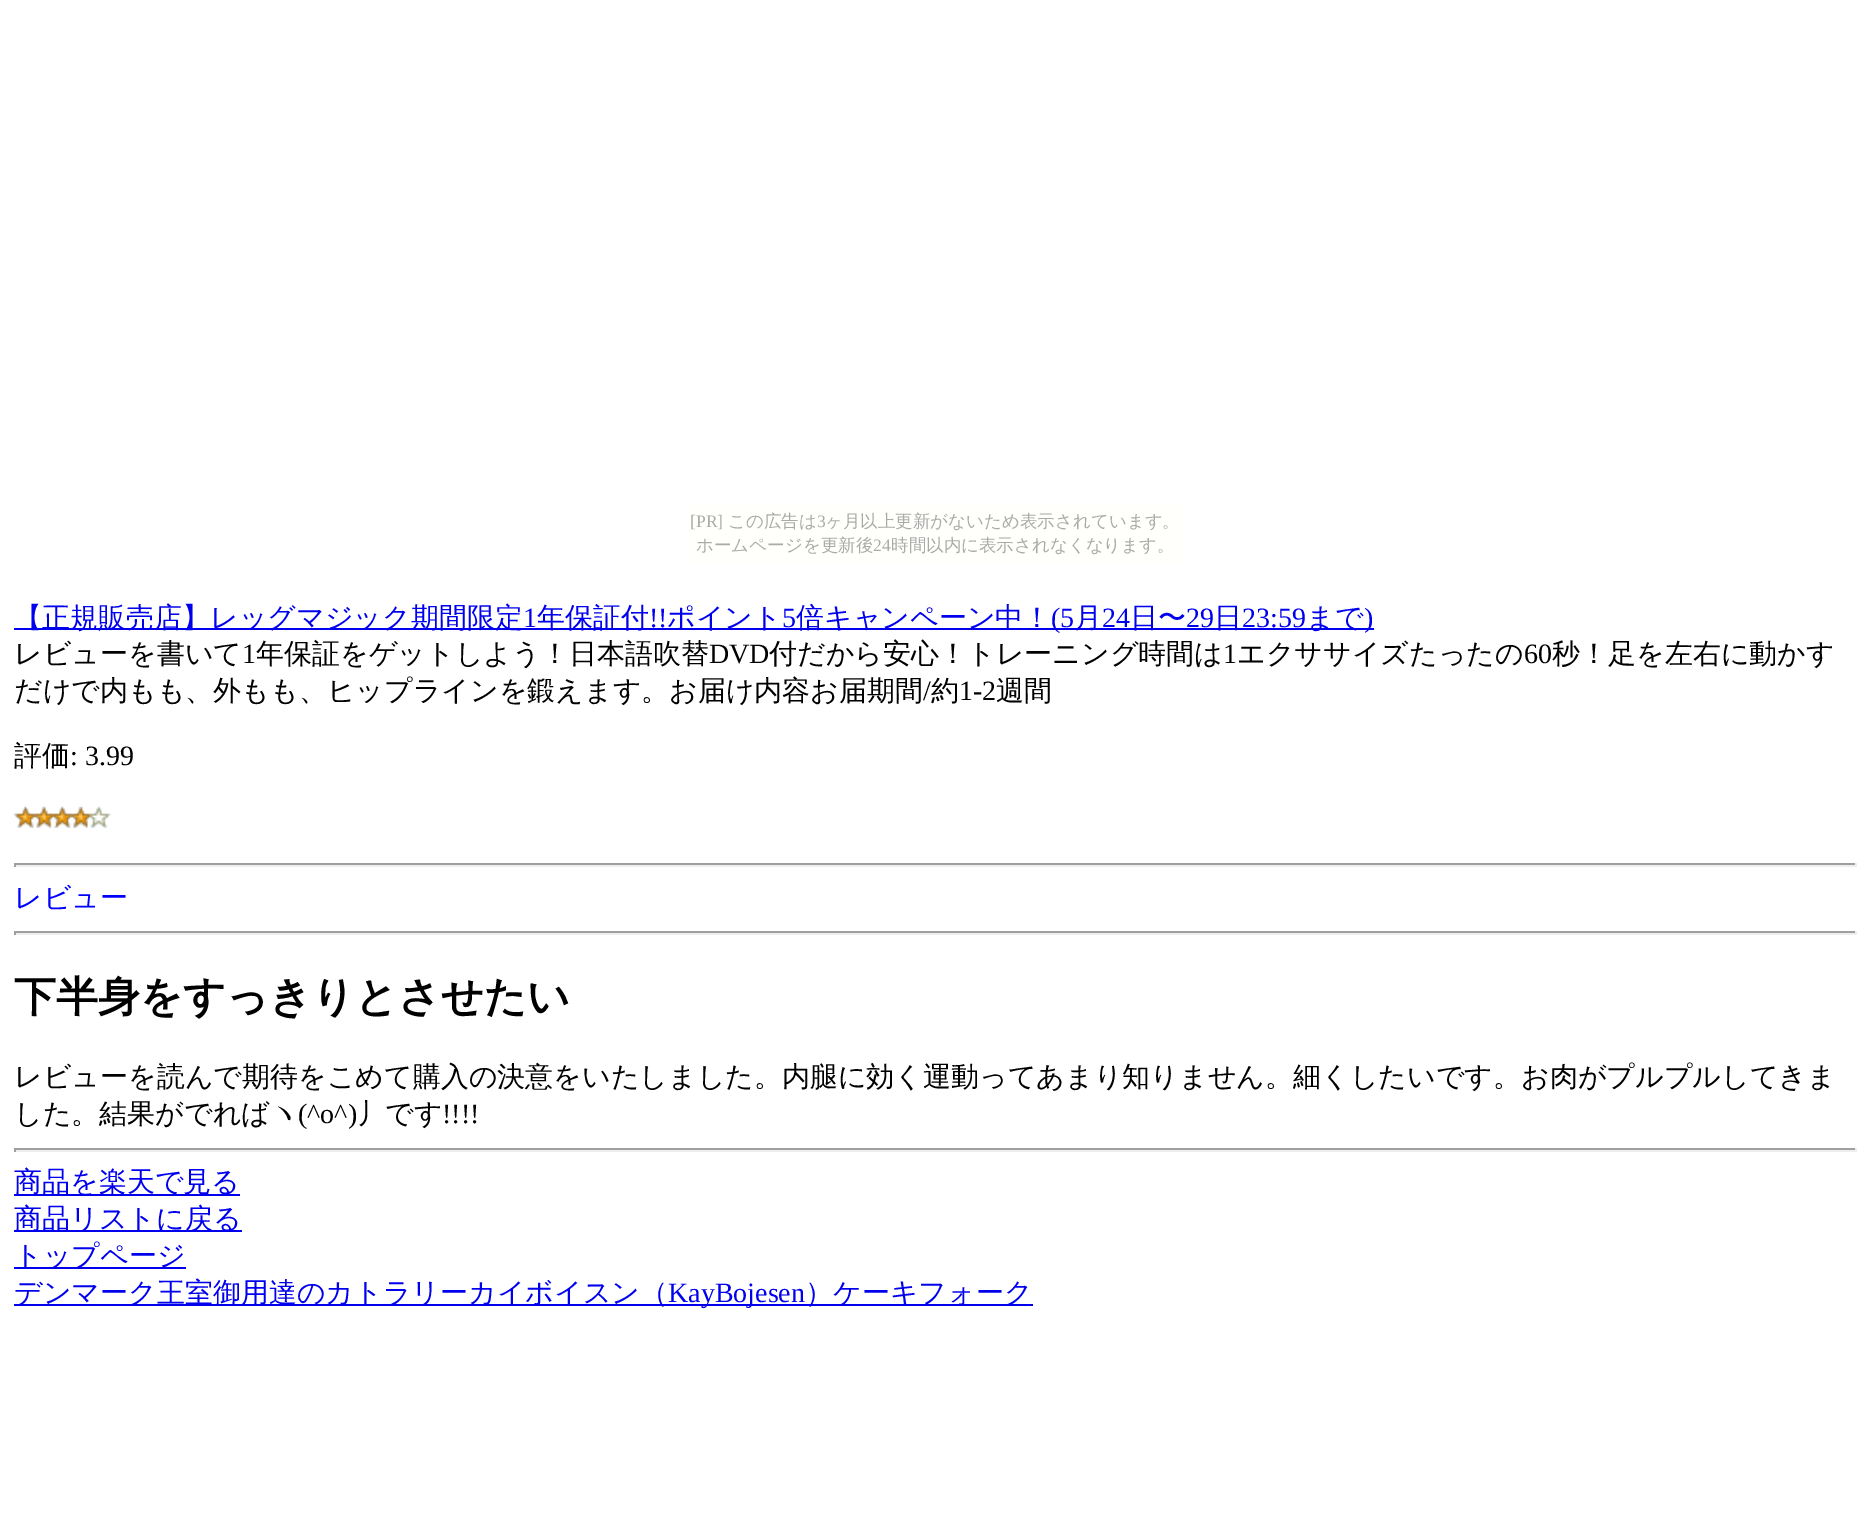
%!PS-Adobe-3.0
%%BoundingBox: 0 0 1870 1520
%%LanguageLevel: 3
%%Pages: 1
%%EndComments
%%BeginProlog
/drawimage { 5 dict begin { /h /w /y /x /name } { exch def } forall
  gsave x y translate w h scale
  w h 8 [w 0 0 h 0 0] name (r) file false 3 colorimage grestore end } def
%%EndProlog
%%BeginSetup
<< /PageSize [1870 1520] >> setpagedevice
%%EndSetup
%%Page: 1 1
0 1520 translate 1 -1 scale
4 setmiterlimit
1 setgray
0 0 1870 1520 rectfill
1 1 0.988 setrgbcolor
686 504 499 60 rectfill
0 0 0.933 setrgbcolor
14 628 1360 2 rectfill
(images/1.raw) 14 806 97 22 drawimage
0.624 setgray
14 863 1843 2 rectfill
0.933 setgray
1855 863 2 4 rectfill
14 865 1843 2 rectfill
0.624 setgray
14 863 2 4 rectfill
14 931 1843 2 rectfill
0.933 setgray
1855 931 2 4 rectfill
14 933 1843 2 rectfill
0.624 setgray
14 931 2 4 rectfill
14 1148 1843 2 rectfill
0.933 setgray
1855 1148 2 4 rectfill
14 1150 1843 2 rectfill
0.624 setgray
14 1148 2 4 rectfill
0 0 0.933 setrgbcolor
14 1194 226 2 rectfill
14 1230 228 2 rectfill
14 1267 172 2 rectfill
14 1304 1019 2 rectfill
/LiberationSerif-Regular [17.5 0 0 -17.5 0 0] selectfont
0.667 setgray
690 527 moveto ([PR]) show
/WenQuanYiZenHei-Medium [17.5 0 0 -17.5 0 0] selectfont
728 527 moveto (この広告は) show
/LiberationSerif-Regular [17.5 0 0 -17.5 0 0] selectfont
817 527 moveto (3) show
/WenQuanYiZenHei-Medium [17.5 0 0 -17.5 0 0] selectfont
825 527 moveto (ヶ月以上更新がないため表示されています。) show
696 551 moveto (ホームページを更新後) show
/LiberationSerif-Regular [17.5 0 0 -17.5 0 0] selectfont
873 551 moveto (24) show
/WenQuanYiZenHei-Medium [17.5 0 0 -17.5 0 0] selectfont
891 551 moveto (時間以内に表示されなくなります。) show
/WenQuanYiZenHei-Medium [28 0 0 -28 0 0] selectfont
0 0 0.933 setrgbcolor
14 627 moveto (【正規販売店】レッグマジック期間限定) show
/LiberationSerif-Regular [28 0 0 -28 0 0] selectfont
523 627 moveto (1) show
/WenQuanYiZenHei-Medium [28 0 0 -28 0 0] selectfont
537 627 moveto (年保証付) show
/LiberationSerif-Regular [28 0 0 -28 0 0] selectfont
649 627 moveto (!!) show
/WenQuanYiZenHei-Medium [28 0 0 -28 0 0] selectfont
667 627 moveto (ポイント) show
/LiberationSerif-Regular [28 0 0 -28 0 0] selectfont
782 627 moveto (5) show
/WenQuanYiZenHei-Medium [28 0 0 -28 0 0] selectfont
796 627 moveto (倍キャンペーン中！) show
/LiberationSerif-Regular [28 0 0 -28 0 0] selectfont
1051 627 moveto (\(5) show
/WenQuanYiZenHei-Medium [28 0 0 -28 0 0] selectfont
1074 627 moveto (月) show
/LiberationSerif-Regular [28 0 0 -28 0 0] selectfont
1102 627 moveto (24) show
/WenQuanYiZenHei-Medium [28 0 0 -28 0 0] selectfont
1130 627 moveto (日〜) show
/LiberationSerif-Regular [28 0 0 -28 0 0] selectfont
1186 627 moveto (29) show
/WenQuanYiZenHei-Medium [28 0 0 -28 0 0] selectfont
1214 627 moveto (日) show
/LiberationSerif-Regular [28 0 0 -28 0 0] selectfont
1242 627 moveto (23:59) show
/WenQuanYiZenHei-Medium [28 0 0 -28 0 0] selectfont
1306 627 moveto (まで) show
/LiberationSerif-Regular [28 0 0 -28 0 0] selectfont
1364 627 moveto (\)) show
/WenQuanYiZenHei-Medium [28 0 0 -28 0 0] selectfont
0 setgray
14 663 moveto (レビューを書いて) show
/LiberationSerif-Regular [28 0 0 -28 0 0] selectfont
242 663 moveto (1) show
/WenQuanYiZenHei-Medium [28 0 0 -28 0 0] selectfont
256 663 moveto (年保証をゲットしよう！日本語吹替) show
/LiberationSerif-Regular [28 0 0 -28 0 0] selectfont
709 663 moveto (DVD) show
/WenQuanYiZenHei-Medium [28 0 0 -28 0 0] selectfont
769 663 moveto (付だから安心！トレーニング時間は) show
/LiberationSerif-Regular [28 0 0 -28 0 0] selectfont
1223 663 moveto (1) show
/WenQuanYiZenHei-Medium [28 0 0 -28 0 0] selectfont
1237 663 moveto (エクササイズたったの) show
/LiberationSerif-Regular [28 0 0 -28 0 0] selectfont
1524 663 moveto (60) show
/WenQuanYiZenHei-Medium [28 0 0 -28 0 0] selectfont
1552 663 moveto (秒！足を左右に動かす) show
14 700 moveto (だけで内もも、外もも、ヒップラインを鍛えます。お届け内容お届期間) show
/LiberationSerif-Regular [28 0 0 -28 0 0] selectfont
923 700 moveto (/) show
/WenQuanYiZenHei-Medium [28 0 0 -28 0 0] selectfont
931 700 moveto (約) show
/LiberationSerif-Regular [28 0 0 -28 0 0] selectfont
959 700 moveto (1-2) show
/WenQuanYiZenHei-Medium [28 0 0 -28 0 0] selectfont
996 700 moveto (週間) show
14 765 moveto (評価) show
/LiberationSerif-Regular [28 0 0 -28 0 0] selectfont
70 765 moveto (: 3.99) show
/WenQuanYiZenHei-Medium [28 0 0 -28 0 0] selectfont
0 0 1 setrgbcolor
14 907 moveto (レビュー) show
/WenQuanYiZenHei-Bold [42 0 0 -42 0 0] selectfont
0 setgray
14 1011 moveto (下半身をすっきりとさせたい) show
/WenQuanYiZenHei-Medium [28 0 0 -28 0 0] selectfont
14 1086 moveto (レビューを読んで期待をこめて購入の決意をいたしました。内腿に効く運動ってあまり知りません。細くしたいです。お肉がプルプルしてきま) show
14 1123 moveto (した。結果がでればヽ) show
/LiberationSerif-Regular [28 0 0 -28 0 0] selectfont
298 1123 moveto (\(^o^\)) show
/WenQuanYiZenHei-Medium [28 0 0 -28 0 0] selectfont
357 1123 moveto (丿です) show
/LiberationSerif-Regular [28 0 0 -28 0 0] selectfont
442 1123 moveto (!!!!) show
/WenQuanYiZenHei-Medium [28 0 0 -28 0 0] selectfont
0 0 0.933 setrgbcolor
14 1191 moveto (商品を楽天で見る) show
14 1228 moveto (商品リストに戻る) show
14 1265 moveto (トップページ) show
14 1302 moveto (デンマーク王室御用達のカトラリーカイボイスン（) show
/LiberationSerif-Regular [28 0 0 -28 0 0] selectfont
668 1302 moveto (KayBojesen) show
/WenQuanYiZenHei-Medium [28 0 0 -28 0 0] selectfont
805 1302 moveto (）ケーキフォーク) show
showpage
%%EOF
